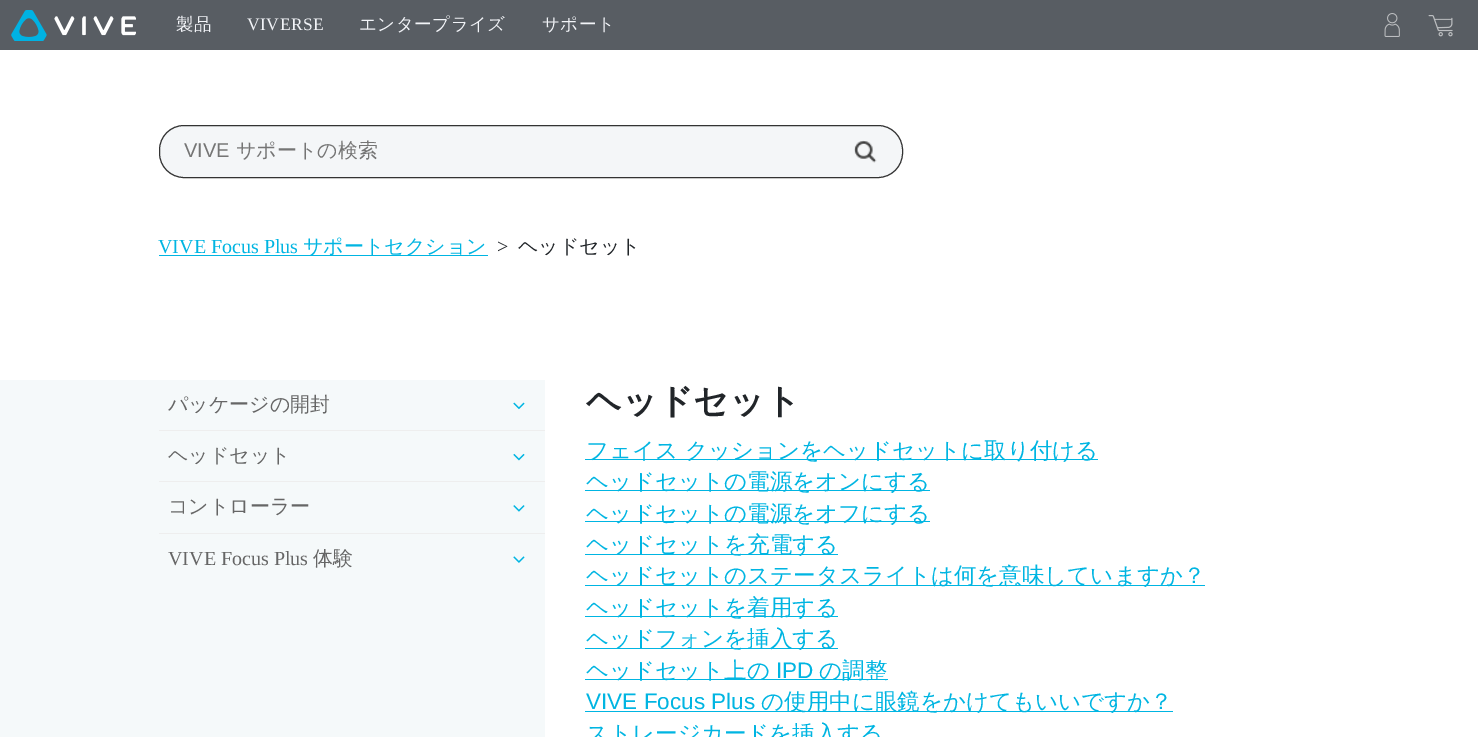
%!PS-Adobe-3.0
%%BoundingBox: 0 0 1478 737
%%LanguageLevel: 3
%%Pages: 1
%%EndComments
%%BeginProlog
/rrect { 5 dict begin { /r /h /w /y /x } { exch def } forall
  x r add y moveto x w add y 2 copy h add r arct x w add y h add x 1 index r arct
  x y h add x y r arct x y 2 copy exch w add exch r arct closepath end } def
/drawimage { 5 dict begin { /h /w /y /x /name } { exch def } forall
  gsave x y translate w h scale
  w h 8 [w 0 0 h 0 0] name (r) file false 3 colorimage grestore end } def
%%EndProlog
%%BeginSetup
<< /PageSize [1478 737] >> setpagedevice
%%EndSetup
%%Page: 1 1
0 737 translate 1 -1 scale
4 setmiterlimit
1 setgray
0 0 1478 737 rectfill
0.345 0.365 0.388 setrgbcolor
0 0 1478 50 rectfill
(images/1.raw) 11 10 125 31 drawimage
(images/2.raw) 1384 13 16 24 drawimage
(images/3.raw) 1428 15 25 22 drawimage
0.957 0.965 0.973 setrgbcolor
159.5 125.5 743 52 24.5 rrect gsave fill grestore
0.2 setgray
stroke
(images/4.raw) 854 140 23 23 drawimage
0 0.71 0.886 setrgbcolor
159 255 329 1 rectfill
0.961 0.976 0.98 setrgbcolor
0 380 545 357 rectfill
0.933 setgray
159 430 386 1 rectfill
(images/5.raw) 513 402 12 8 drawimage
159 481 386 1 rectfill
(images/6.raw) 513 453 12 8 drawimage
159 533 386 1 rectfill
(images/7.raw) 513 505 12 7 drawimage
(images/8.raw) 513 556 12 7 drawimage
0 0.71 0.886 setrgbcolor
585 459 513 1 rectfill
585 490 345 1 rectfill
585 521 345 1 rectfill
585 554 253 1 rectfill
585 585 620 1 rectfill
585 616 253 1 rectfill
585 648 253 1 rectfill
585 679 303 1 rectfill
585 711 588 1 rectfill
/WenQuanYiZenHei-Medium [17.5 0 0 -17.5 0 0] selectfont
0.949 0.957 0.973 setrgbcolor
176 30 moveto 0.5 0 (製品) ashow
/LiberationSerif-Regular [17.5 0 0 -17.5 0 0] selectfont
247 30 moveto 0.5 0 (VIVERSE) ashow
/WenQuanYiZenHei-Medium [17.5 0 0 -17.5 0 0] selectfont
359 30 moveto 0.5 0 (エンタープライズ) ashow
542 30 moveto 0.5 0 (サポート) ashow
/LiberationSans-Regular [20 0 0 -20 0 0] selectfont
0.459 setgray
184 157 moveto (VIVE) show
/WenQuanYiZenHei-Medium [20 0 0 -20 0 0] selectfont
236 157 moveto (サポートの検索) show
/LiberationSerif-Regular [20 0 0 -20 0 0] selectfont
0 0.71 0.886 setrgbcolor
158 253 moveto (VIVE Focus Plus) show
/WenQuanYiZenHei-Medium [20 0 0 -20 0 0] selectfont
303 253 moveto (サポートセクション) show
/LiberationSerif-Regular [20 0 0 -20 0 0] selectfont
0.129 0.145 0.161 setrgbcolor
497 253 moveto (>) show
/WenQuanYiZenHei-Medium [20 0 0 -20 0 0] selectfont
518 253 moveto (ヘッドセット) show
0.4 setgray
168 411 moveto (パッケージの開封) show
168 462 moveto (ヘッドセット) show
168 513 moveto (コントローラー) show
/LiberationSerif-Regular [20 0 0 -20 0 0] selectfont
168 565 moveto (VIVE Focus Plus) show
/WenQuanYiZenHei-Medium [20 0 0 -20 0 0] selectfont
313 565 moveto (体験) show
/WenQuanYiZenHei-Bold [35 0 0 -35 0 0] selectfont
0.129 0.145 0.161 setrgbcolor
586 413 moveto (ヘッドセット) show
/WenQuanYiZenHei-Medium [22.5 0 0 -22.5 0 0] selectfont
0 0.71 0.886 setrgbcolor
586 458 moveto (フェイス クッションをヘッドセットに取り付ける) show
586 489 moveto (ヘッドセットの電源をオンにする) show
586 521 moveto (ヘッドセットの電源をオフにする) show
586 552 moveto (ヘッドセットを充電する) show
586 583 moveto (ヘッドセットのステータスライトは何を意味していますか？) show
586 615 moveto (ヘッドセットを着用する) show
586 646 moveto (ヘッドフォンを挿入する) show
586 678 moveto (ヘッドセット上の) show
/LiberationSans-Regular [22.5 0 0 -22.5 0 0] selectfont
776 678 moveto (IPD) show
/WenQuanYiZenHei-Medium [22.5 0 0 -22.5 0 0] selectfont
819 678 moveto (の調整) show
/LiberationSans-Regular [22.5 0 0 -22.5 0 0] selectfont
586 709 moveto (VIVE Focus Plus) show
/WenQuanYiZenHei-Medium [22.5 0 0 -22.5 0 0] selectfont
761 709 moveto (の使用中に眼鏡をかけてもいいですか？) show
586 741 moveto (ストレージカードを挿入する) show
showpage
%%EOF
